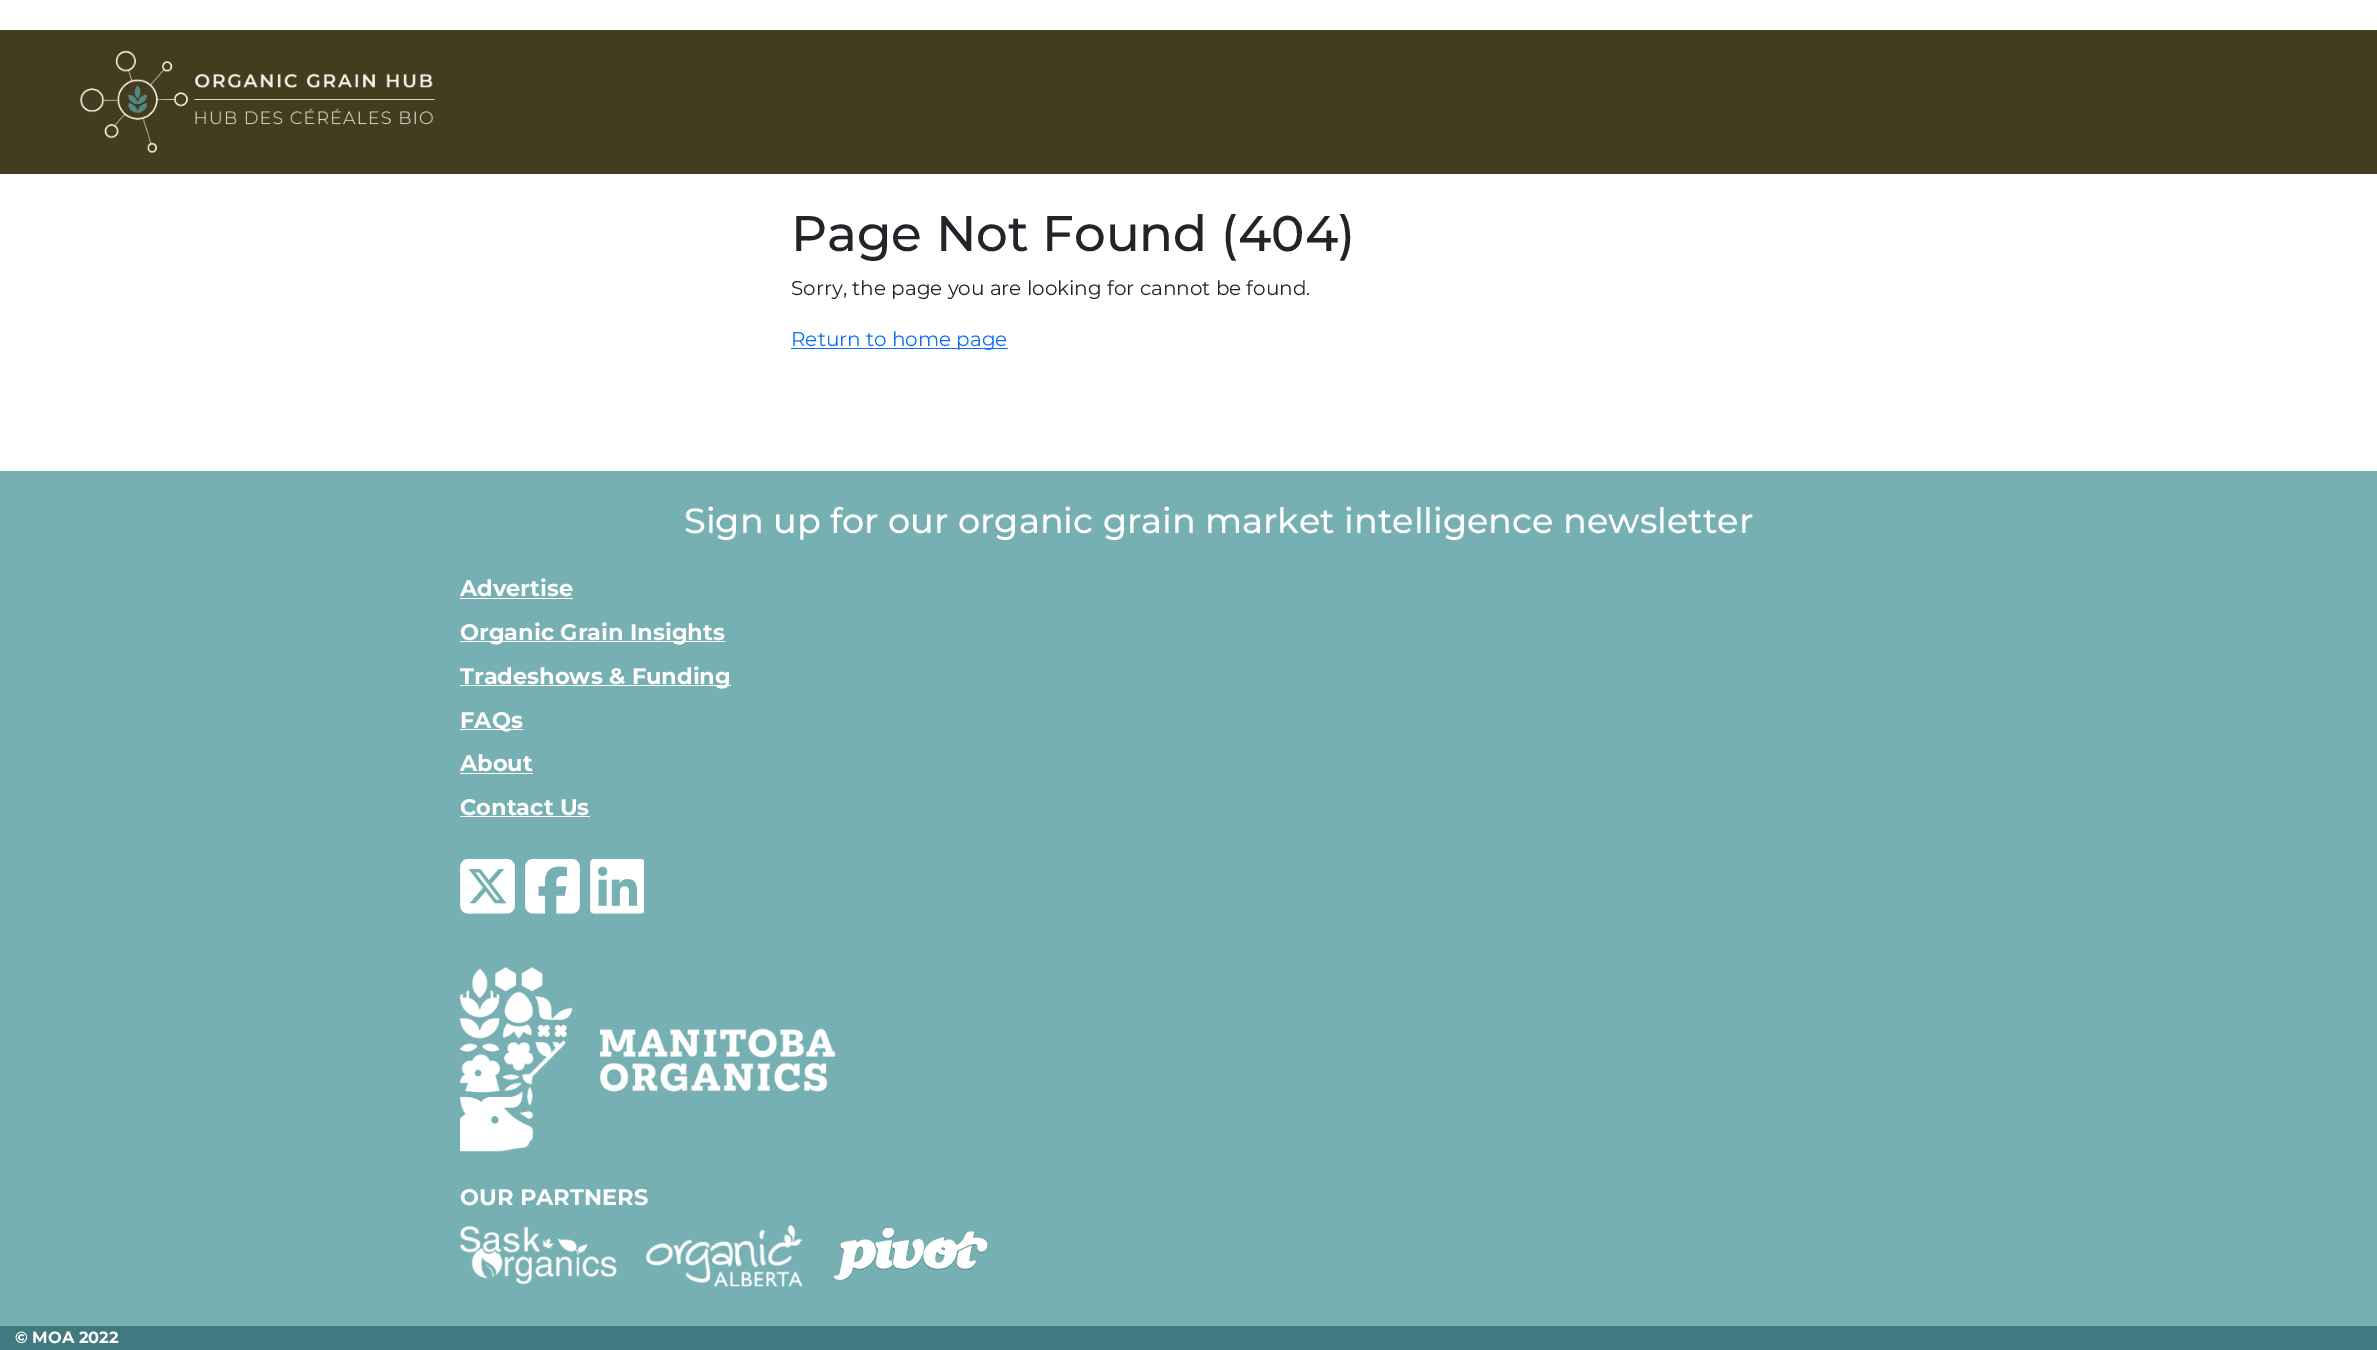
%!PS-Adobe-3.0
%%BoundingBox: 0 0 2377 1350
%%LanguageLevel: 3
%%Pages: 1
%%EndComments
%%BeginProlog
/drawimage { 5 dict begin { /h /w /y /x /name } { exch def } forall
  gsave x y translate w h scale
  w h 8 [w 0 0 h 0 0] name (r) file false 3 colorimage grestore end } def
%%EndProlog
%%BeginSetup
<< /PageSize [2377 1350] >> setpagedevice
%%EndSetup
%%Page: 1 1
0 1350 translate 1 -1 scale
4 setmiterlimit
1 setgray
0 0 2377 1350 rectfill
0.259 0.239 0.118 setrgbcolor
0 30 2377 144 rectfill
(images/1.raw) 80 50 355 104 drawimage
0.051 0.431 0.992 setrgbcolor
791 348 217 1 rectfill
0.467 0.69 0.702 setrgbcolor
0 471 2377 855 rectfill
1 setgray
460 598 113 1 rectfill
460 641 265 1 rectfill
460 685 271 1 rectfill
460 729 63 1 rectfill
460 773 73 1 rectfill
460 816 130 1 rectfill
(images/2.raw) 460 858 55 56 drawimage
(images/3.raw) 525 858 55 56 drawimage
(images/4.raw) 590 858 54 56 drawimage
(images/5.raw) 460 967 375 185 drawimage
(images/6.raw) 460 1226 157 58 drawimage
(images/7.raw) 646 1225 157 62 drawimage
(images/8.raw) 833 1228 155 52 drawimage
0.255 0.478 0.494 setrgbcolor
0 1326 2377 24 rectfill
/Montserrat-Medium [50 0 0 -50 0 0] selectfont
0.129 0.145 0.161 setrgbcolor
791 251 moveto (Page Not Found \(404\)) show
/Montserrat-Regular [20 0 0 -20 0 0] selectfont
791 295 moveto (Sorry, the page you are looking for cannot be found.) show
0.051 0.431 0.992 setrgbcolor
791 346 moveto (Return to home page) show
/Montserrat-Medium [35 0 0 -35 0 0] selectfont
1 setgray
684 533 moveto (Sign up for our organic grain market intelligence newsletter) show
/Montserrat-Bold [22.5 0 0 -22.5 0 0] selectfont
460 596 moveto (Advertise) show
460 640 moveto (Organic Grain Insights) show
460 684 moveto (Tradeshows & Funding) show
460 728 moveto (FAQs) show
460 771 moveto (About) show
460 815 moveto (Contact Us) show
460 1205 moveto (OUR PARTNERS) show
/Montserrat-Bold [16.25 0 0 -16.25 0 0] selectfont
15 1343 moveto (© MOA 2022) show
showpage
%%EOF
